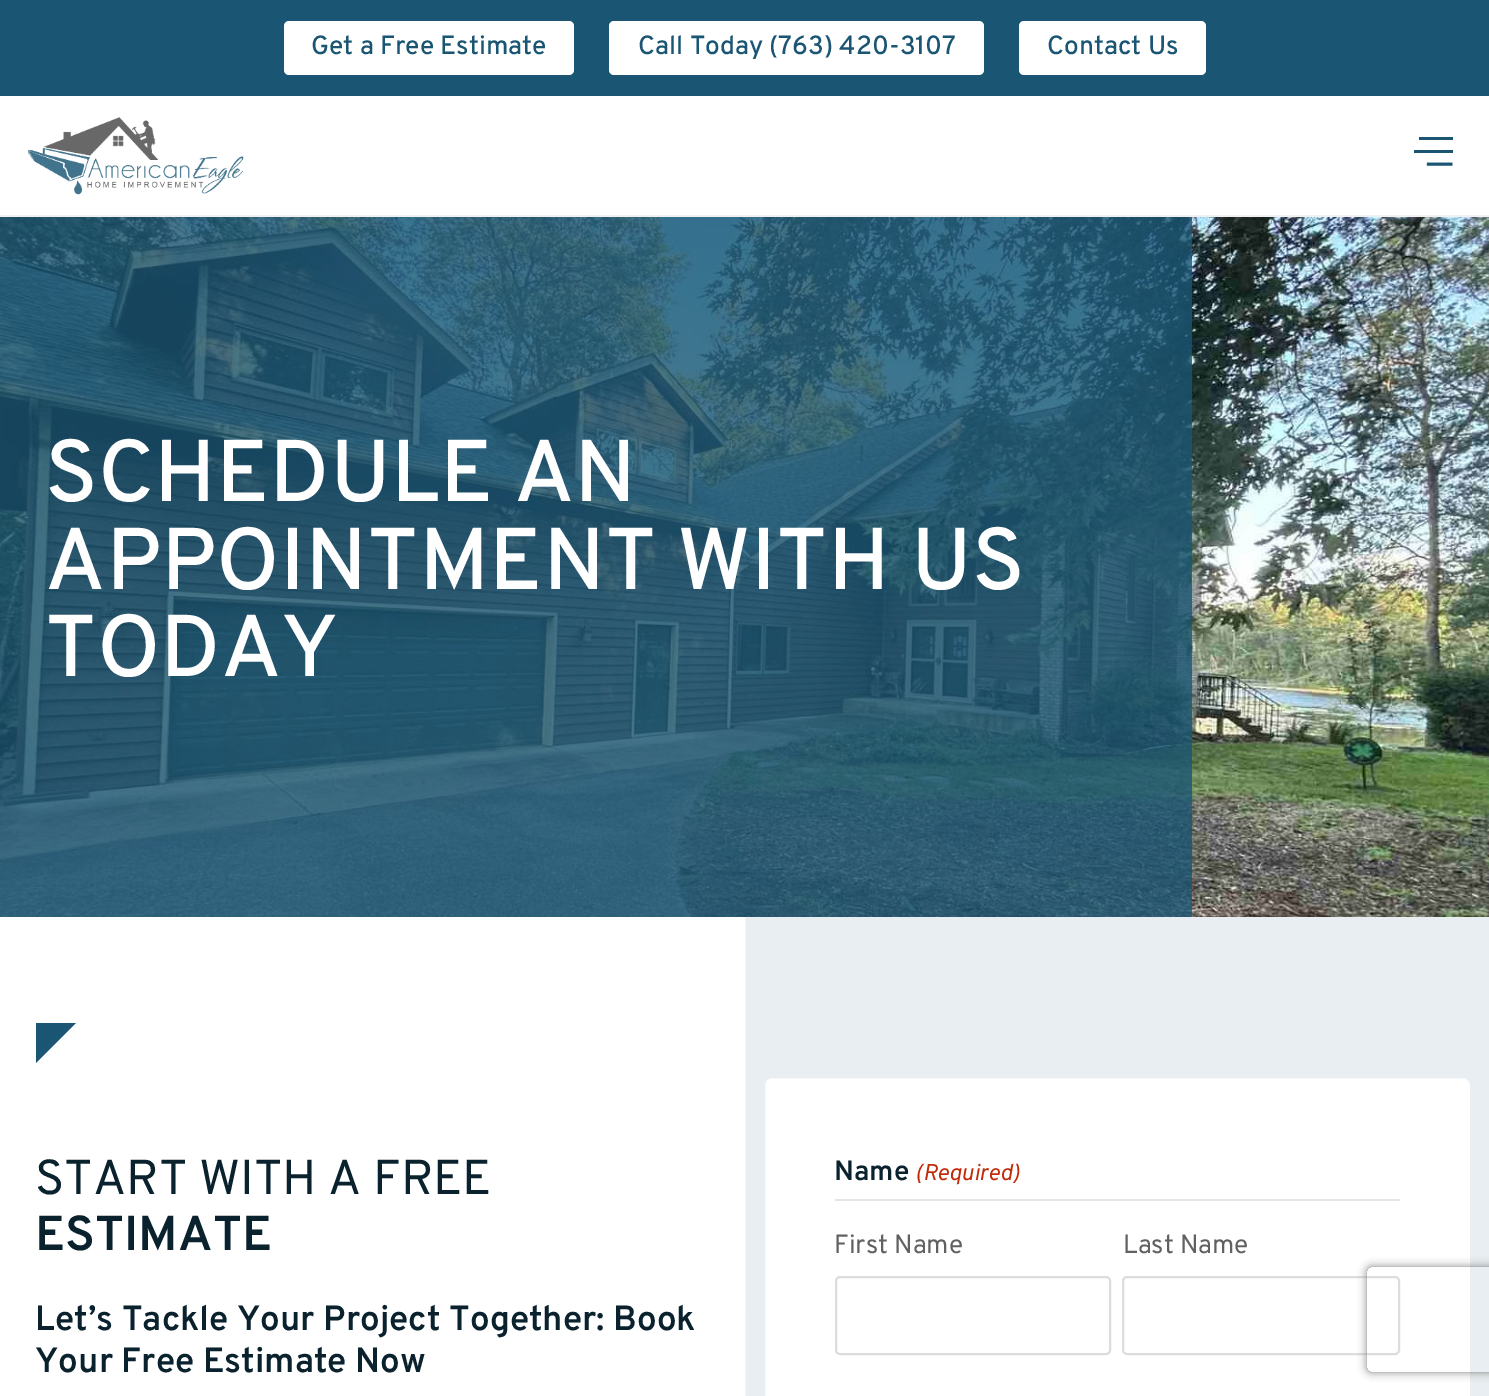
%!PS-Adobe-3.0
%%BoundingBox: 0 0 1489 1396
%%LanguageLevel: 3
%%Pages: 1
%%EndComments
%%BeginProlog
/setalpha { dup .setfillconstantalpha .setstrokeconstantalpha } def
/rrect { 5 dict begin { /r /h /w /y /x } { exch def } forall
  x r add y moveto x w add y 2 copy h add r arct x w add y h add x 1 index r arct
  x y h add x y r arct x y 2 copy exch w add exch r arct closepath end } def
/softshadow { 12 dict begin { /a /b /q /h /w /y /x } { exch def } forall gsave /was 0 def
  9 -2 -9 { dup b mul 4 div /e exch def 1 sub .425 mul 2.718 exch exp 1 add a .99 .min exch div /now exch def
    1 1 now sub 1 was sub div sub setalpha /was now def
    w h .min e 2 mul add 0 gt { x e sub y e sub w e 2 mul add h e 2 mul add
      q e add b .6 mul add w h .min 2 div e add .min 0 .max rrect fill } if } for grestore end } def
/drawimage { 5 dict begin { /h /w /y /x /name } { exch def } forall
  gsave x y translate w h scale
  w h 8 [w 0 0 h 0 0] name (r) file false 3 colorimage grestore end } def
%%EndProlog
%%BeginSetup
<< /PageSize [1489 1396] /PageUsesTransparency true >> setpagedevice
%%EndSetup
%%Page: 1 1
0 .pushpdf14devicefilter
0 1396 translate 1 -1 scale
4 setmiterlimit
1 setgray
0 0 1489 1396 rectfill
0.945 setgray
0 215 1489 2 rectfill
0.102 0.333 0.451 setrgbcolor
0 0 1489 96 rectfill
1 setgray
284 21 290 54 5 rrect fill
609 21 375 54 5 rrect fill
1019 21 187 54 5 rrect fill
(images/1.raw) 28 117 216 78 drawimage
(images/2.raw) 1414 137 39 29 drawimage
(images/3.raw) 0 217 1489 700 drawimage
0.8 setalpha
0.102 0.333 0.451 setrgbcolor
0 217 1192 700 rectfill
1 setalpha
newpath 76 1023 moveto 36 1063 lineto 36 1023 lineto closepath fill
0.91 0.933 0.945 setrgbcolor
746 917 743 479 rectfill
(images/4.raw) 745 917 1 479 drawimage
1 setgray
764 1077 707 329 8 rrect gsave fill grestore
0.91 0.933 0.945 setrgbcolor
2 setlinewidth
stroke
0.898 setgray
835 1199 565 2 rectfill
0.867 setgray
836 1277 274 77 4 rrect stroke
1123 1277 276 77 4 rrect stroke
gsave
newpath 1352 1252 moveto 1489 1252 lineto 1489 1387 lineto 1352 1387 lineto closepath 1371 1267 moveto 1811 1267 lineto 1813 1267 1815 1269 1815 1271 curveto 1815 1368 lineto 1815 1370 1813 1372 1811 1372 curveto 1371 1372 lineto 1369 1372 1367 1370 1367 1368 curveto 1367 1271 lineto 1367 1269 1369 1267 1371 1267 curveto closepath eoclip newpath
0.502 setgray
1367 1267 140 105 4 4.5 1 softshadow
grestore
/Overpass-Medium [26.25 0 0 -26.25 0 0] selectfont
0.102 0.333 0.451 setrgbcolor
311 54 moveto (Get a Free Estimate) show
638 54 moveto (Call Today \(763\) 420-3107) show
1047 54 moveto (Contact Us) show
/Overpass-Medium [87.5 0 0 -87.5 0 0] selectfont
1 setgray
45 501 moveto (SCHEDULE AN) show
45 589 moveto (APPOINTMENT WITH US) show
45 676 moveto (TODAY) show
/Overpass-Regular [49 0 0 -49 0 0] selectfont
0.039 0.133 0.18 setrgbcolor
35 1194 moveto (START WITH A FREE) show
/Overpass-SemiBold [49 0 0 -49 0 0] selectfont
35 1250 moveto (ESTIMATE) show
/Overpass-SemiBold [35 0 0 -35 0 0] selectfont
35 1330 moveto (Let’s Tackle Your Project Together: Book) show
35 1372 moveto (Your Free Estimate Now) show
/Overpass-SemiBold [28 0 0 -28 0 0] selectfont
834 1180 moveto (Name) show
/Overpass-Italic [22.75 0 0 -22.75 0 0] selectfont
0.753 0.169 0.039 setrgbcolor
915 1180 moveto (\(Required\)) show
/Overpass-Regular [26.25 0 0 -26.25 0 0] selectfont
0.38 setgray
834 1253 moveto (First Name) show
1123 1253 moveto (Last Name) show
.poppdf14devicefilter showpage
%%EOF
